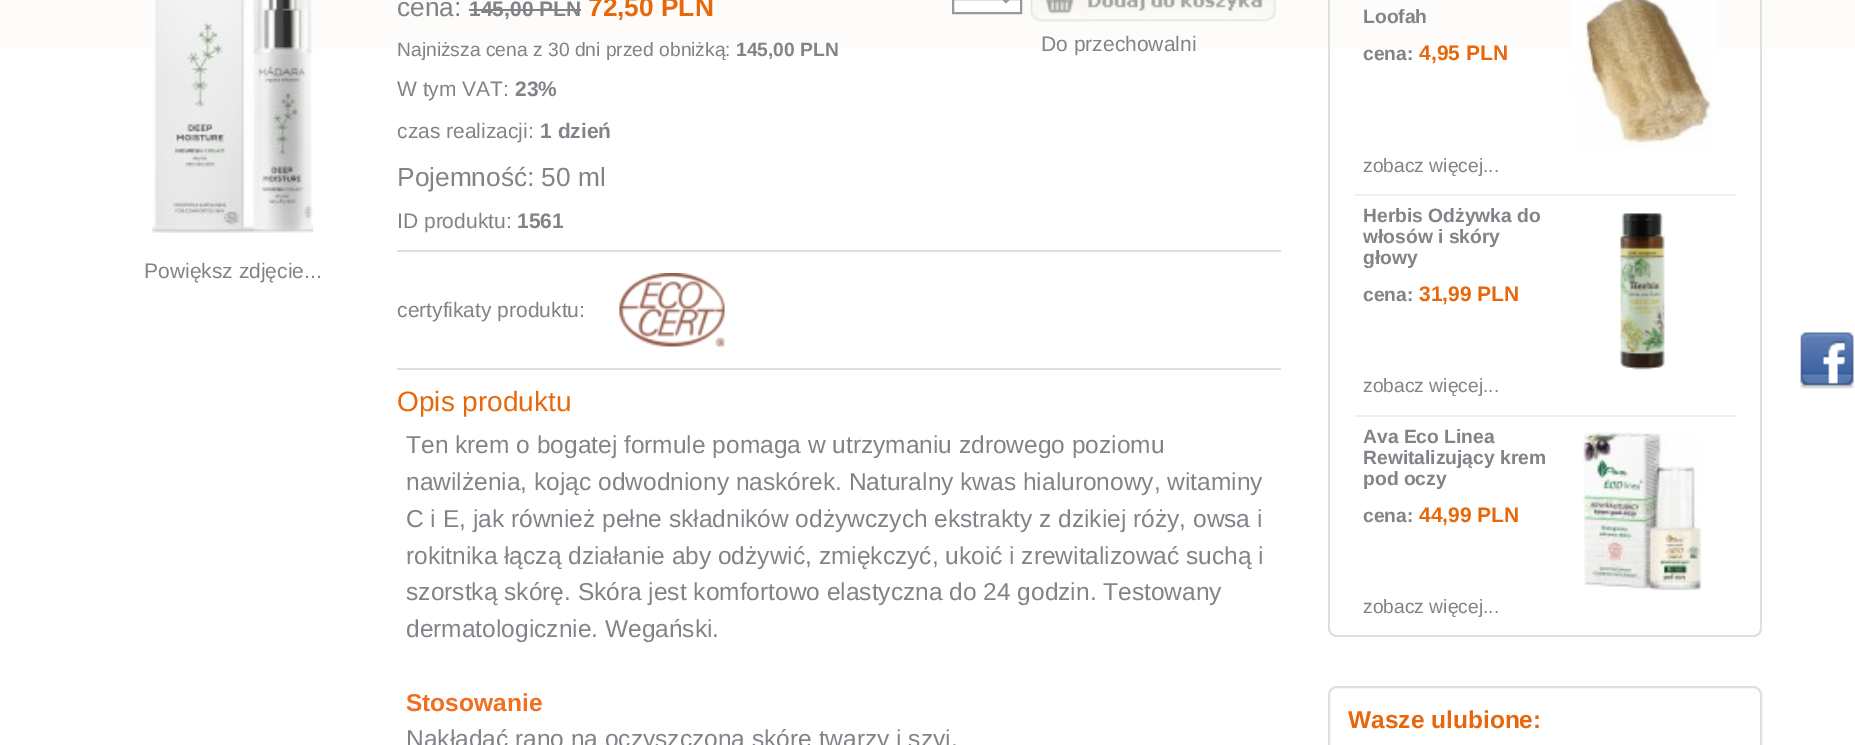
%!PS-Adobe-3.0
%%BoundingBox: 0 0 1855 745
%%LanguageLevel: 3
%%Pages: 1
%%EndComments
%%BeginProlog
/drawimage { 5 dict begin { /h /w /y /x /name } { exch def } forall
  gsave x y translate w h scale
  w h 8 [w 0 0 h 0 0] name (r) file false 3 colorimage grestore end } def
%%EndProlog
%%BeginSetup
<< /PageSize [1855 745] >> setpagedevice
%%EndSetup
%%Page: 1 1
0 745 translate 1 -1 scale
4 setmiterlimit
1 setgray
0 0 1855 745 rectfill
0.992 0.988 0.98 setrgbcolor
0 0 1855 49 rectfill
(images/1.raw) 152 0 162 233 drawimage
0.51 0.514 0.533 setrgbcolor
469 9 112 2 rectfill
1 setgray
newpath 953 -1 moveto 1021 -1 lineto 1021 13 lineto 953 13 lineto closepath gsave fill grestore
0.6 setgray
2 setlinewidth
stroke
3.5 setlinewidth
newpath 999 -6 moveto 1006 1 lineto 1013 -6 lineto stroke
(images/2.raw) 1030 0 246 23 drawimage
0.847 0.89 0.859 setrgbcolor
397 250 884 2 rectfill
397 368 884 2 rectfill
(images/3.raw) 619 273 106 74 drawimage
newpath 1328 -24 moveto 1762 -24 lineto 1762 628 lineto 1762 633 1758 637 1754 637 curveto 1337 637 lineto 1332 637 1328 633 1328 628 curveto closepath 1330 -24 moveto 1760 -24 lineto 1760 628 lineto 1760 632 1757 635 1754 635 curveto 1337 635 lineto 1333 635 1330 632 1330 628 curveto closepath eofill
(images/4.raw) 1572 0 143 148 drawimage
0.929 0.949 0.933 setrgbcolor
1355 194 381 2 rectfill
(images/5.raw) 1620 213 45 157 drawimage
1355 415 381 2 rectfill
(images/6.raw) 1583 432 118 158 drawimage
0.847 0.89 0.859 setrgbcolor
2 setlinewidth
newpath 1337 687 moveto 1753 687 lineto 1757.5 687 1761 690.5 1761 695 curveto 1761 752 lineto 1329 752 lineto 1329 695 lineto 1329 690.5 1332.5 687 1337 687 curveto closepath stroke
(images/7.raw) 1799 332 56 57 drawimage
/LiberationSans-Regular [21 0 0 -21 0 0] selectfont
0.51 0.514 0.533 setrgbcolor
144 278 moveto (Powiększ zdjęcie...) show
/LiberationSans-Regular [26.25 0 0 -26.25 0 0] selectfont
397 16 moveto (cena:) show
/LiberationSans-Bold [21 0 0 -21 0 0] selectfont
469 16 moveto (145,00 PLN) show
/LiberationSans-Bold [26.25 0 0 -26.25 0 0] selectfont
0.906 0.408 0.043 setrgbcolor
588 16 moveto (72,50 PLN) show
/LiberationSans-Regular [19.25 0 0 -19.25 0 0] selectfont
0.51 0.514 0.533 setrgbcolor
397 56 moveto (Najniższa cena z 30 dni przed obniżką:) show
/LiberationSans-Bold [19.25 0 0 -19.25 0 0] selectfont
736 56 moveto (145,00 PLN) show
/LiberationSans-Regular [21 0 0 -21 0 0] selectfont
397 96 moveto (W tym VAT:) show
/LiberationSans-Bold [21 0 0 -21 0 0] selectfont
515 96 moveto (23%) show
/LiberationSans-Regular [21 0 0 -21 0 0] selectfont
397 138 moveto (czas realizacji:) show
/LiberationSans-Bold [21 0 0 -21 0 0] selectfont
540 138 moveto (1 dzień) show
/LiberationSans-Regular [26.25 0 0 -26.25 0 0] selectfont
397 186 moveto (Pojemność: 50 ml) show
/LiberationSans-Regular [21 0 0 -21 0 0] selectfont
397 228 moveto (ID produktu:) show
/LiberationSans-Bold [21 0 0 -21 0 0] selectfont
517 228 moveto (1561) show
/LiberationSans-Regular [21 0 0 -21 0 0] selectfont
1041 51 moveto (Do przechowalni) show
397 317 moveto (certyfikaty produktu:) show
/LiberationSans-Regular [28 0 0 -28 0 0] selectfont
0.906 0.408 0.043 setrgbcolor
397 411 moveto (Opis produktu) show
/LiberationSans-Regular [24.5 0 0 -24.5 0 0] selectfont
0.51 0.514 0.533 setrgbcolor
406 453 moveto (Ten krem o bogatej formule pomaga w utrzymaniu zdrowego poziomu) show
406 490 moveto (nawilżenia, kojąc odwodniony naskórek. Naturalny kwas hialuronowy, witaminy) show
406 527 moveto (C i E, jak również pełne składników odżywczych ekstrakty z dzikiej róży, owsa i) show
406 564 moveto (rokitnika łączą działanie aby odżywić, zmiękczyć, ukoić i zrewitalizować suchą i) show
406 600 moveto (szorstką skórę. Skóra jest komfortowo elastyczna do 24 godzin. Testowany) show
406 637 moveto (dermatologicznie. Wegański.) show
/LiberationSans-Bold [24.5 0 0 -24.5 0 0] selectfont
0.949 0.435 0.129 setrgbcolor
406 711 moveto (Stosowanie) show
/LiberationSans-Regular [24.5 0 0 -24.5 0 0] selectfont
0.51 0.514 0.533 setrgbcolor
406 747 moveto (Nakładać rano na oczyszczoną skórę twarzy i szyi.) show
/LiberationSans-Bold [19.25 0 0 -19.25 0 0] selectfont
1363 23 moveto (Loofah) show
1363 60 moveto (cena:) show
/LiberationSans-Bold [21 0 0 -21 0 0] selectfont
0.906 0.408 0.043 setrgbcolor
1419 60 moveto (4,95 PLN) show
/LiberationSans-Regular [19.25 0 0 -19.25 0 0] selectfont
0.51 0.514 0.533 setrgbcolor
1363 172 moveto (zobacz więcej...) show
/LiberationSans-Bold [19.25 0 0 -19.25 0 0] selectfont
1363 222 moveto (Herbis Odżywka do) show
1363 243 moveto (włosów i skóry) show
1363 264 moveto (głowy) show
1363 301 moveto (cena:) show
/LiberationSans-Bold [21 0 0 -21 0 0] selectfont
0.906 0.408 0.043 setrgbcolor
1419 301 moveto (31,99 PLN) show
/LiberationSans-Regular [19.25 0 0 -19.25 0 0] selectfont
0.51 0.514 0.533 setrgbcolor
1363 392 moveto (zobacz więcej...) show
/LiberationSans-Bold [19.25 0 0 -19.25 0 0] selectfont
1363 443 moveto (Ava Eco Linea) show
1363 464 moveto (Rewitalizujący krem) show
1363 485 moveto (pod oczy) show
1363 522 moveto (cena:) show
/LiberationSans-Bold [21 0 0 -21 0 0] selectfont
0.906 0.408 0.043 setrgbcolor
1419 522 moveto (44,99 PLN) show
/LiberationSans-Regular [19.25 0 0 -19.25 0 0] selectfont
0.51 0.514 0.533 setrgbcolor
1363 613 moveto (zobacz więcej...) show
/LiberationSans-Bold [24.5 0 0 -24.5 0 0] selectfont
0.906 0.408 0.043 setrgbcolor
1348 728 moveto (Wasze ulubione:) show
showpage
%%EOF
